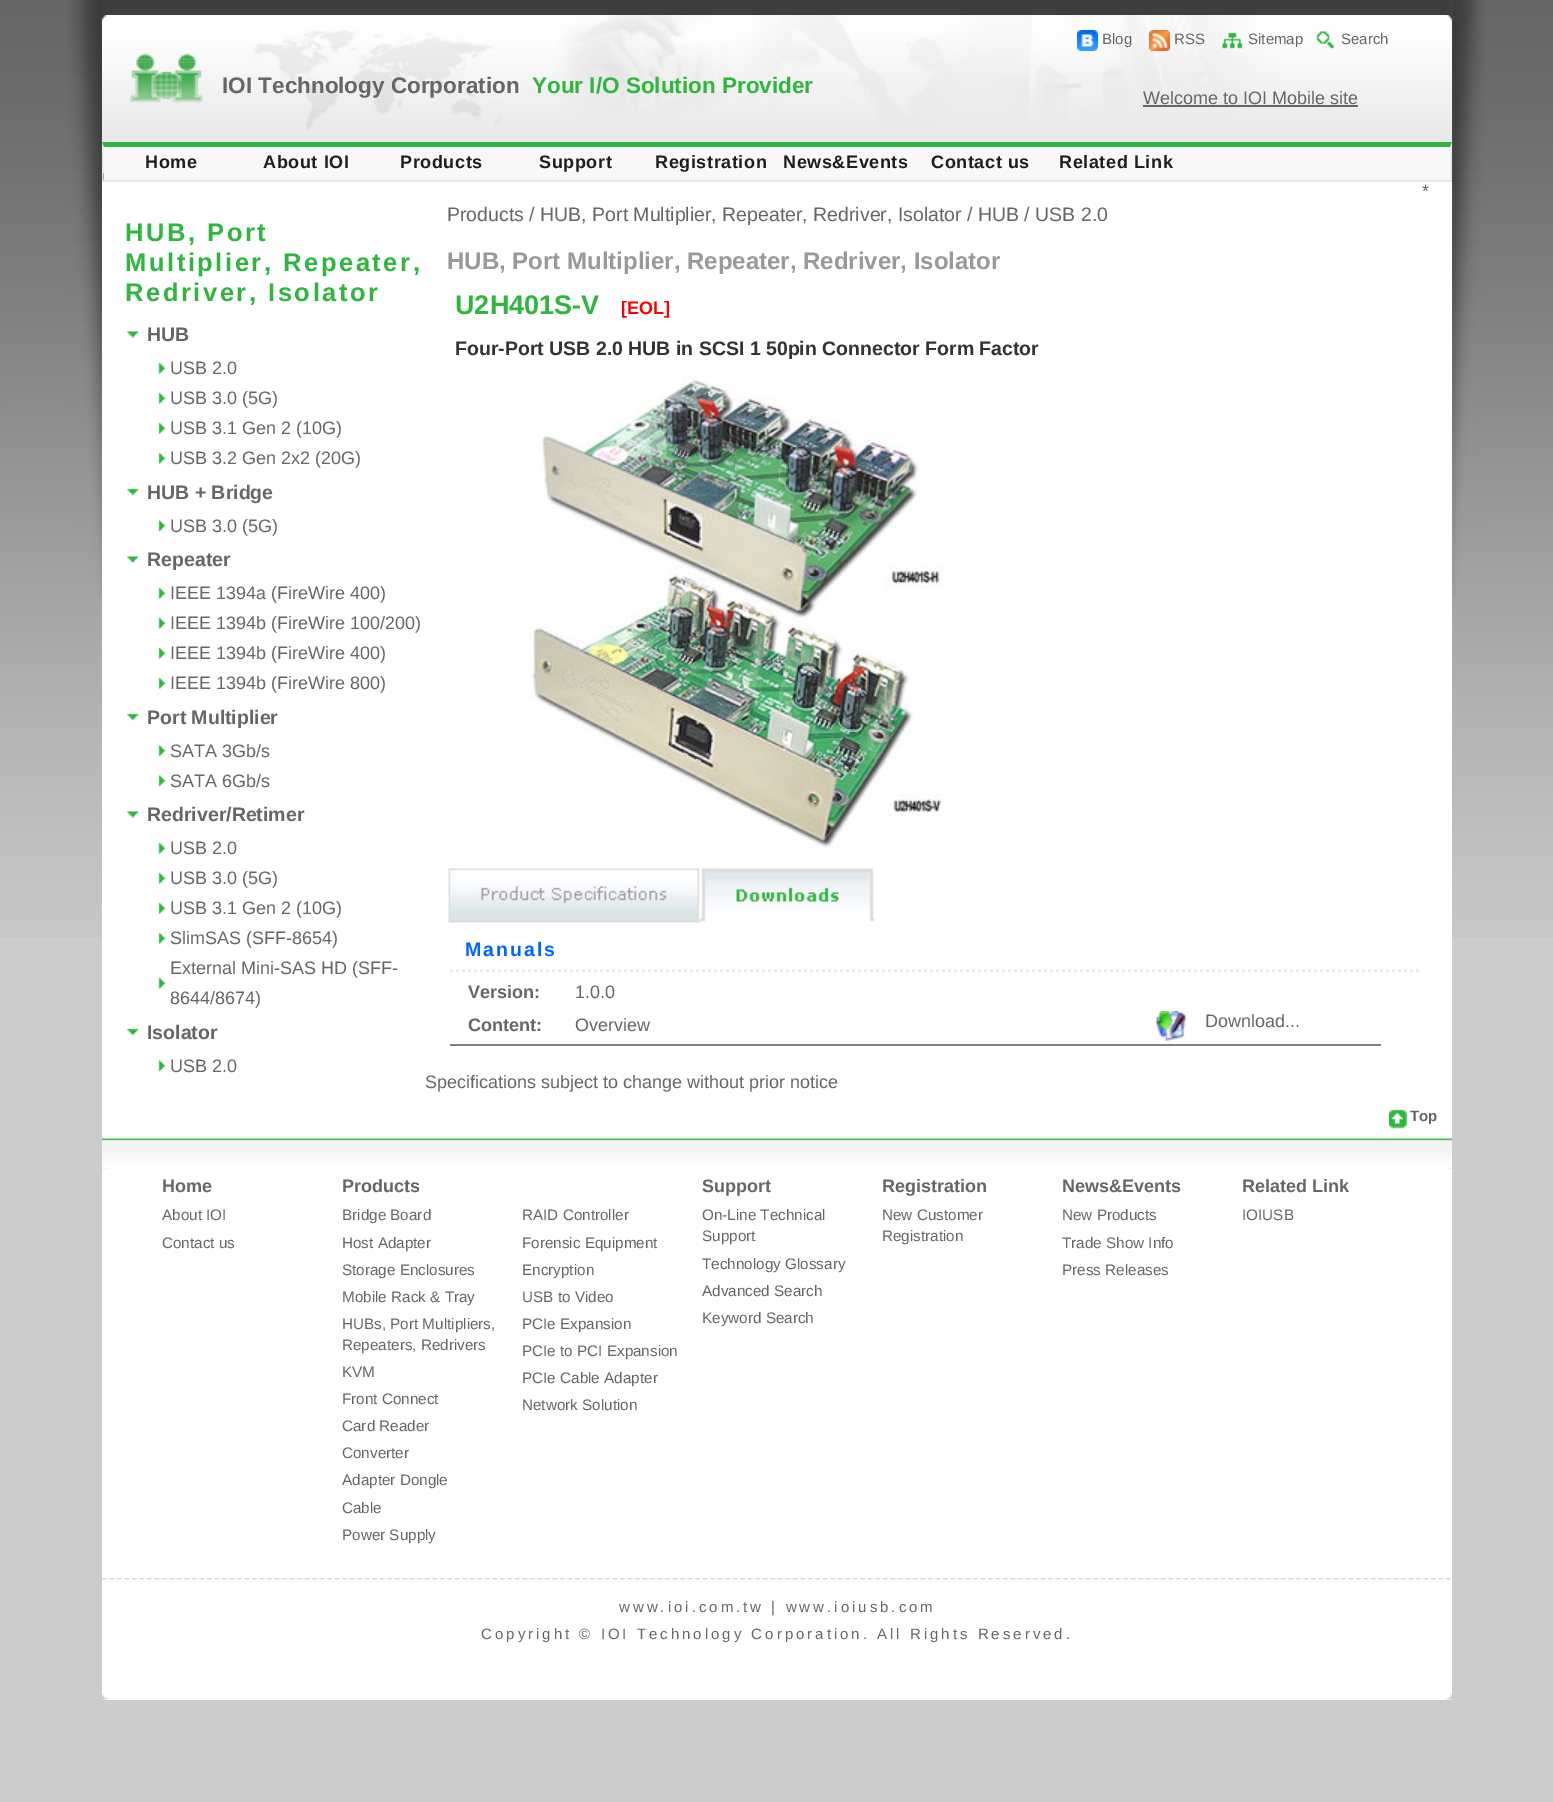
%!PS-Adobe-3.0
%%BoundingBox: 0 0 1553 1802
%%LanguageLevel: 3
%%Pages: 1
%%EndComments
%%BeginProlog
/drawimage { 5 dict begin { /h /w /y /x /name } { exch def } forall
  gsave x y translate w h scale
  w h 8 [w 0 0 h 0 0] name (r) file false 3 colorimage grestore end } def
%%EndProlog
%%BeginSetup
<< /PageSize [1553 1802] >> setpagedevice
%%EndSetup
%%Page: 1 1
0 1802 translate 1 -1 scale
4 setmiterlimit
0.8 setgray
0 0 1553 1802 rectfill
(images/1.raw) 0 0 1553 939 drawimage
(images/2.raw) 68 0 1417 597 drawimage
0.243 setgray
102 0 1350 15 rectfill
1 setgray
102 142 1350 31 rectfill
(images/3.raw) 102 15 1350 128 drawimage
(images/4.raw) 1077 30 21 21 drawimage
(images/5.raw) 1149 30 21 21 drawimage
(images/6.raw) 1222 32 21 17 drawimage
(images/7.raw) 1316 31 18 18 drawimage
0.4 setgray
1143 105 215 2 rectfill
0.973 setgray
104 147 1347 33 rectfill
0.184 0.714 0.243 setrgbcolor
newpath 102 142 moveto 1452 142 lineto 1450 147 lineto 104 147 lineto closepath fill
0.902 setgray
newpath 1452 142.5 moveto 1452 181.5 lineto 1450.5 180 lineto 1450.5 147 lineto closepath fill
102 180 1350 2 rectfill
newpath 102 181.5 moveto 102 142.5 lineto 103.5 147 lineto 103.5 180 lineto closepath fill
1 setgray
102 182 1350 1518 rectfill
(images/8.raw) 127 331 12 7 drawimage
(images/9.raw) 158 362 8 12 drawimage
(images/9.raw) 158 392 8 12 drawimage
(images/9.raw) 158 422 8 12 drawimage
(images/9.raw) 158 452 8 12 drawimage
(images/10.raw) 127 488 12 8 drawimage
(images/11.raw) 158 520 8 12 drawimage
(images/8.raw) 127 556 12 7 drawimage
(images/9.raw) 158 587 8 12 drawimage
(images/9.raw) 158 617 8 12 drawimage
(images/9.raw) 158 647 8 12 drawimage
(images/9.raw) 158 677 8 12 drawimage
(images/10.raw) 127 713 12 8 drawimage
(images/11.raw) 158 745 8 12 drawimage
(images/11.raw) 158 775 8 12 drawimage
(images/8.raw) 127 811 12 7 drawimage
(images/9.raw) 158 842 8 12 drawimage
(images/9.raw) 158 872 8 12 drawimage
(images/9.raw) 158 902 8 12 drawimage
(images/9.raw) 158 932 8 12 drawimage
(images/9.raw) 158 977 8 12 drawimage
(images/10.raw) 127 1028 12 8 drawimage
(images/11.raw) 158 1060 8 12 drawimage
(images/12.raw) 527 373 419 475 drawimage
(images/13.raw) 448 868 253 55 drawimage
(images/14.raw) 700 868 175 54 drawimage
0.922 setgray
3 setlinewidth
[3 3] 0 setdash
newpath 450 970.5 moveto 1419 970.5 lineto stroke
(images/15.raw) 1156 1011 31 30 drawimage
0.502 setgray
450 1044 931 2 rectfill
(images/16.raw) 102 1168 1350 1 drawimage
(images/17.raw) 1389 1109 19 20 drawimage
(images/18.raw) 102 1138 1350 31 drawimage
0.8 setgray
1.5 setlinewidth
[4.5 3.01] 0 setdash
newpath 102 1579 moveto 1452 1579 lineto stroke
(images/19.raw) 102 1579 1350 121 drawimage
/LiberationSans-Regular [15 0 0 -15 0 0] selectfont
0.4 setgray
1102 44 moveto (Blog) show
1174 44 moveto (RSS) show
1248 44 moveto (Sitemap) show
1341 44 moveto (Search) show
/LiberationSans-Bold [22.5 0 0 -22.5 0 0] selectfont
222 93 moveto (IOI Technology Corporation) show
0.184 0.714 0.243 setrgbcolor
532 93 moveto (Your I/O Solution Provider) show
/LiberationSans-Regular [18 0 0 -18 0 0] selectfont
0.4 setgray
1143 104 moveto (Welcome to IOI Mobile site) show
/LiberationSans-Bold [18 0 0 -18 0 0] selectfont
0.118 setgray
145 168 moveto 0.6 0 (Home) ashow
263 168 moveto 0.6 0 (About IOI) ashow
400 168 moveto 0.6 0 (Products) ashow
539 168 moveto 0.6 0 (Support) ashow
655 168 moveto 0.6 0 (Registration) ashow
783 168 moveto 0.6 0 (News&Events) ashow
931 168 moveto 0.6 0 (Contact us) ashow
1059 168 moveto 0.6 0 (Related Link) ashow
/LiberationSans-Regular [18 0 0 -18 0 0] selectfont
0.4 setgray
1422 197 moveto (*) show
/LiberationSans-Bold [25.5 0 0 -25.5 0 0] selectfont
0.184 0.714 0.243 setrgbcolor
125 241 moveto 2.55 0 (HUB, Port) ashow
125 271 moveto 2.55 0 (Multiplier, Repeater,) ashow
125 301 moveto 2.55 0 (Redriver, Isolator) ashow
/LiberationSans-Bold [19.5 0 0 -19.5 0 0] selectfont
0.4 setgray
147 341 moveto (HUB) show
/LiberationSans-Regular [18 0 0 -18 0 0] selectfont
170 374 moveto (USB 2.0) show
170 404 moveto (USB 3.0 \(5G\)) show
170 434 moveto (USB 3.1 Gen 2 \(10G\)) show
170 464 moveto (USB 3.2 Gen 2x2 \(20G\)) show
/LiberationSans-Bold [19.5 0 0 -19.5 0 0] selectfont
147 499 moveto (HUB + Bridge) show
/LiberationSans-Regular [18 0 0 -18 0 0] selectfont
170 532 moveto (USB 3.0 \(5G\)) show
/LiberationSans-Bold [19.5 0 0 -19.5 0 0] selectfont
147 566 moveto (Repeater) show
/LiberationSans-Regular [18 0 0 -18 0 0] selectfont
170 599 moveto (IEEE 1394a \(FireWire 400\)) show
170 629 moveto (IEEE 1394b \(FireWire 100/200\)) show
170 659 moveto (IEEE 1394b \(FireWire 400\)) show
170 689 moveto (IEEE 1394b \(FireWire 800\)) show
/LiberationSans-Bold [19.5 0 0 -19.5 0 0] selectfont
147 724 moveto (Port Multiplier) show
/LiberationSans-Regular [18 0 0 -18 0 0] selectfont
170 757 moveto (SATA 3Gb/s) show
170 787 moveto (SATA 6Gb/s) show
/LiberationSans-Bold [19.5 0 0 -19.5 0 0] selectfont
147 821 moveto (Redriver/Retimer) show
/LiberationSans-Regular [18 0 0 -18 0 0] selectfont
170 854 moveto (USB 2.0) show
170 884 moveto (USB 3.0 \(5G\)) show
170 914 moveto (USB 3.1 Gen 2 \(10G\)) show
170 944 moveto (SlimSAS \(SFF-8654\)) show
170 974 moveto (External Mini-SAS HD \(SFF-) show
170 1004 moveto (8644/8674\)) show
/LiberationSans-Bold [19.5 0 0 -19.5 0 0] selectfont
147 1039 moveto (Isolator) show
/LiberationSans-Regular [18 0 0 -18 0 0] selectfont
170 1072 moveto (USB 2.0) show
/LiberationSans-Regular [19.5 0 0 -19.5 0 0] selectfont
447 221 moveto (Products / HUB, Port Multiplier, Repeater, Redriver, Isolator / HUB / USB 2.0) show
/LiberationSans-Bold [24 0 0 -24 0 0] selectfont
0.6 setgray
447 269 moveto (HUB, Port Multiplier, Repeater, Redriver, Isolator) show
/LiberationSans-Bold [27 0 0 -27 0 0] selectfont
0.184 0.714 0.243 setrgbcolor
455 314 moveto (U2H401S-V) show
/LiberationSans-Bold [18 0 0 -18 0 0] selectfont
1 0 0 setrgbcolor
621 314 moveto ([EOL]) show
/LiberationSans-Bold [19.5 0 0 -19.5 0 0] selectfont
0.2 setgray
455 355 moveto (Four-Port USB 2.0 HUB in SCSI 1 50pin Connector Form Factor) show
0 0.4 1 setrgbcolor
465 956 moveto 2 0 (Manuals) ashow
/LiberationSans-Bold [18 0 0 -18 0 0] selectfont
0.4 setgray
468 998 moveto (Version:) show
/LiberationSans-Regular [18 0 0 -18 0 0] selectfont
575 998 moveto (1.0.0) show
/LiberationSans-Bold [18 0 0 -18 0 0] selectfont
468 1031 moveto (Content:) show
/LiberationSans-Regular [18 0 0 -18 0 0] selectfont
575 1031 moveto (Overview) show
1205 1027 moveto (Download...) show
425 1088 moveto (Specifications subject to change without prior notice) show
/LiberationSans-Bold [15 0 0 -15 0 0] selectfont
1410 1121 moveto (Top) show
/LiberationSans-Bold [18 0 0 -18 0 0] selectfont
162 1192 moveto (Home) show
/LiberationSans-Regular [15.25 0 0 -15.25 0 0] selectfont
162 1220 moveto (About IOI) show
162 1248 moveto (Contact us) show
/LiberationSans-Bold [18 0 0 -18 0 0] selectfont
342 1192 moveto (Products) show
/LiberationSans-Regular [15.25 0 0 -15.25 0 0] selectfont
342 1220 moveto (Bridge Board) show
342 1248 moveto (Host Adapter) show
342 1275 moveto (Storage Enclosures) show
342 1302 moveto (Mobile Rack & Tray) show
342 1329 moveto (HUBs, Port Multipliers,) show
342 1350 moveto (Repeaters, Redrivers) show
342 1377 moveto (KVM) show
342 1404 moveto (Front Connect) show
342 1431 moveto (Card Reader) show
342 1458 moveto (Converter) show
342 1485 moveto (Adapter Dongle) show
342 1513 moveto (Cable) show
342 1540 moveto (Power Supply) show
522 1220 moveto (RAID Controller) show
522 1248 moveto (Forensic Equipment) show
522 1275 moveto (Encryption) show
522 1302 moveto (USB to Video) show
522 1329 moveto (PCIe Expansion) show
522 1356 moveto (PCIe to PCI Expansion) show
522 1383 moveto (PCIe Cable Adapter) show
522 1410 moveto (Network Solution) show
/LiberationSans-Bold [18 0 0 -18 0 0] selectfont
702 1192 moveto (Support) show
/LiberationSans-Regular [15.25 0 0 -15.25 0 0] selectfont
702 1220 moveto (On-Line Technical) show
702 1241 moveto (Support) show
702 1269 moveto (Technology Glossary) show
702 1296 moveto (Advanced Search) show
702 1323 moveto (Keyword Search) show
/LiberationSans-Bold [18 0 0 -18 0 0] selectfont
882 1192 moveto (Registration) show
/LiberationSans-Regular [15.25 0 0 -15.25 0 0] selectfont
882 1220 moveto (New Customer) show
882 1241 moveto (Registration) show
/LiberationSans-Bold [18 0 0 -18 0 0] selectfont
1062 1192 moveto (News&Events) show
/LiberationSans-Regular [15.25 0 0 -15.25 0 0] selectfont
1062 1220 moveto (New Products) show
1062 1248 moveto (Trade Show Info) show
1062 1275 moveto (Press Releases) show
/LiberationSans-Bold [18 0 0 -18 0 0] selectfont
1242 1192 moveto (Related Link) show
/LiberationSans-Regular [15.25 0 0 -15.25 0 0] selectfont
1242 1220 moveto (IOIUSB) show
/LiberationSans-Regular [15 0 0 -15 0 0] selectfont
619 1612 moveto 3 0 (www.ioi.com.tw | www.ioiusb.com) ashow
481 1639 moveto 3 0 (Copyright © IOI Technology Corporation. All Rights Reserved.) ashow
showpage
%%EOF
